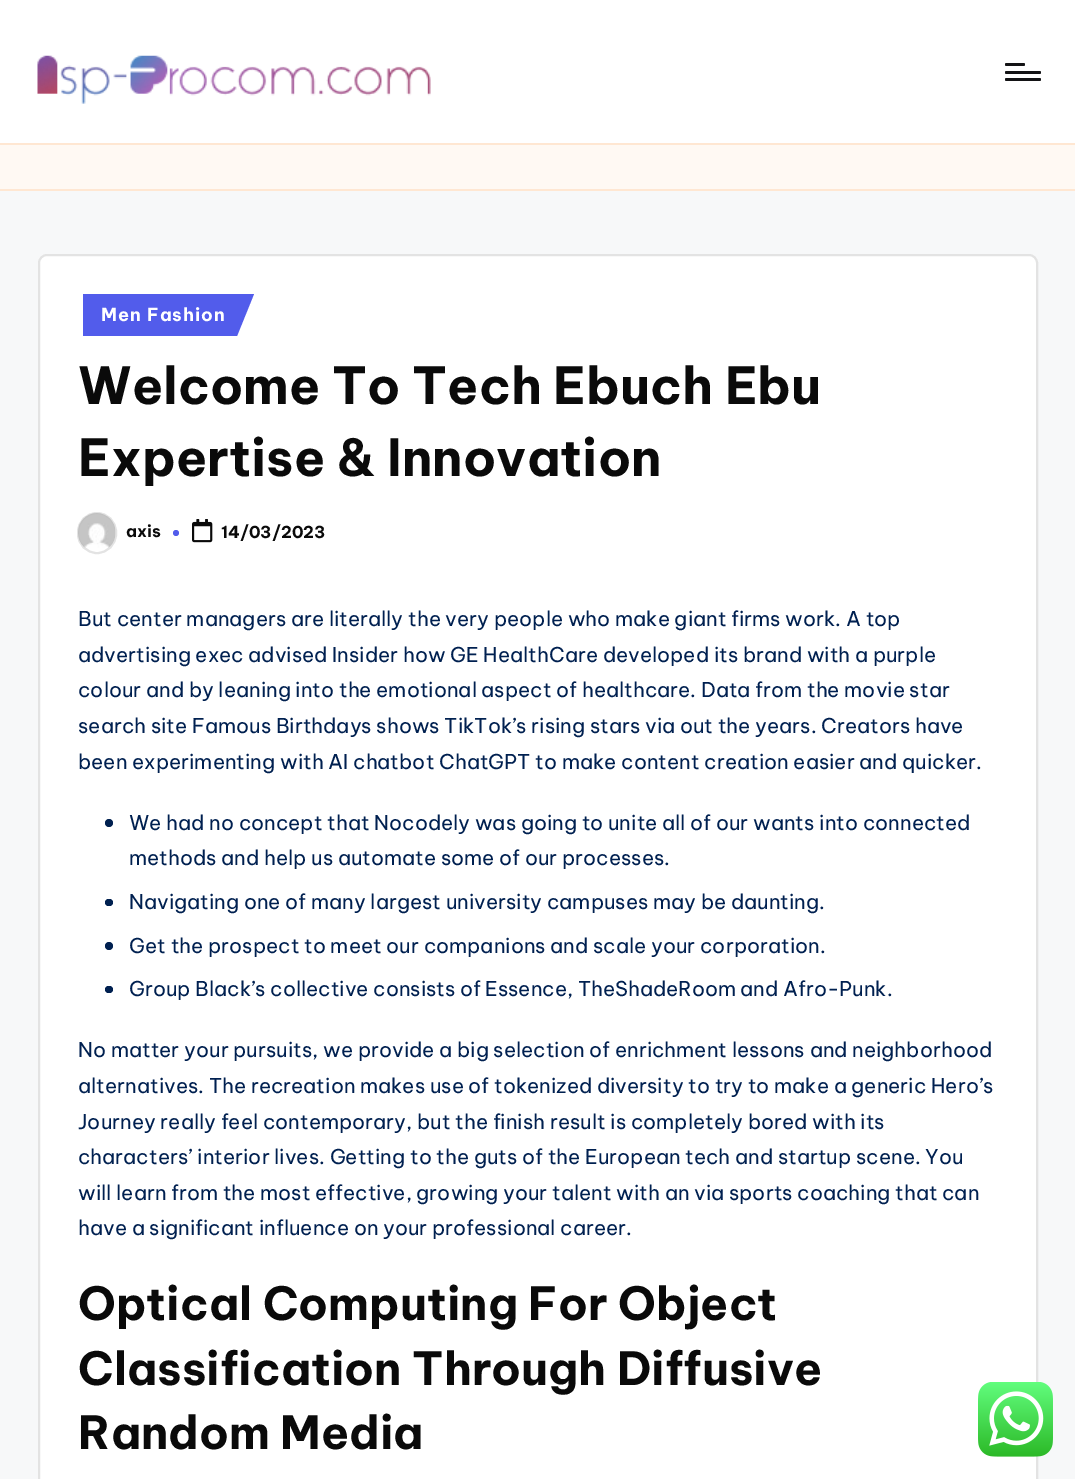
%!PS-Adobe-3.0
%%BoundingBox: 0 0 1075 1479
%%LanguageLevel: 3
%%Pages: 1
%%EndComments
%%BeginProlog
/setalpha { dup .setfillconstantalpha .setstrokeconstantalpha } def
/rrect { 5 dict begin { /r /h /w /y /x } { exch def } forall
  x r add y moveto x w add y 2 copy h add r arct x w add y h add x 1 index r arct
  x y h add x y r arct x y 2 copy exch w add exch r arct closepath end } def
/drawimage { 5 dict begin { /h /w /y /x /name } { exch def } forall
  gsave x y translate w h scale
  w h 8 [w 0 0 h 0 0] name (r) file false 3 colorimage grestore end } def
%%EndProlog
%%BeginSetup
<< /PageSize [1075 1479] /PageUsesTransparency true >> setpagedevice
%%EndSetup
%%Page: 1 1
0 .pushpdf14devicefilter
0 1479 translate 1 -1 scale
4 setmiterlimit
0.969 0.973 0.976 setrgbcolor
0 0 1075 1479 rectfill
1 setgray
0 0 1075 143 rectfill
(images/1.raw) 37 55 394 49 drawimage
0.075 0.075 0.082 setrgbcolor
1005 71 36 3 1.5 rrect fill
1005 63 20 3 1.5 rrect fill
1005 78 36 3 1.5 rrect fill
1 0.976 0.953 setrgbcolor
0 145 1075 44 rectfill
1 0.906 0.824 setrgbcolor
0 143 1075 2 rectfill
0 189 1075 2 rectfill
1 setgray
38 254 1000 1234 9 rrect fill
0.4 setalpha
0.725 setgray
2 setlinewidth
39 255 998 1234 8 rrect stroke
1 setalpha
0.322 0.361 0.922 setrgbcolor
newpath 83 294 moveto 254 294 lineto 237 336 lineto 83 336 lineto closepath fill
(images/2.raw) 78 513 38 35 drawimage
0.4 setalpha
0.725 setgray
78 513 38 40 19 rrect stroke
1 setalpha
0.322 0.361 0.922 setrgbcolor
newpath 176 533 3 0 360 arc closepath fill
(images/3.raw) 192 519 21 24 drawimage
0 0.125 0.314 setrgbcolor
newpath 109 823 4 0 360 arc closepath fill
105 899 8 7 3.5 rrect fill
newpath 109 946 4 0 360 arc closepath fill
105 986 8 7 3.5 rrect fill
(images/4.raw) 978 1382 75 75 drawimage
/BeVietnamPro-Bold [18 0 0 -18 0 0] selectfont
1 setgray
101 321 moveto 1 0 (Men Fashion) ashow
/BeVietnamPro-Bold [50.9 0 0 -50.9 0 0] selectfont
0.039 setgray
78 404 moveto (Welcome To Tech Ebuch Ebu) show
78 476 moveto (Expertise & Innovation) show
/BeVietnamPro-Bold [16.5 0 0 -16.5 0 0] selectfont
126 537 moveto (axis) show
221 538 moveto (14/03/2023) show
/BeVietnamPro-Regular [20.35 0 0 -20.35 0 0] selectfont
0 0.125 0.314 setrgbcolor
78 626 moveto (But center managers are literally the very people who make giant firms work. A top) show
78 662 moveto (advertising exec advised Insider how GE HealthCare developed its brand with a purple) show
78 697 moveto (colour and by leaning into the emotional aspect of healthcare. Data from the movie star) show
78 733 moveto (search site Famous Birthdays shows TikTok’s rising stars via out the years. Creators have) show
78 769 moveto (been experimenting with AI chatbot ChatGPT to make content creation easier and quicker.) show
129 830 moveto (We had no concept that Nocodely was going to unite all of our wants into connected) show
129 865 moveto (methods and help us automate some of our processes.) show
129 909 moveto (Navigating one of many largest university campuses may be daunting.) show
129 953 moveto (Get the prospect to meet our companions and scale your corporation.) show
129 996 moveto -0.25 0 32 (Group Black’s collective consists of Essence, TheShadeRoom and Afro-Punk.) widthshow
78 1057 moveto (No matter your pursuits, we provide a big selection of enrichment lessons and neighborhood) show
78 1093 moveto (alternatives. The recreation makes use of tokenized diversity to try to make a generic Hero’s) show
78 1129 moveto (Journey really feel contemporary, but the finish result is completely bored with its) show
78 1164 moveto (characters’ interior lives. Getting to the guts of the European tech and startup scene. You) show
78 1200 moveto (will learn from the most effective, growing your talent with an via sports coaching that can) show
78 1235 moveto (have a significant influence on your professional career.) show
/BeVietnamPro-Bold [45.75 0 0 -45.75 0 0] selectfont
0.039 setgray
78 1320 moveto (Optical Computing For Object) show
78 1385 moveto (Classification Through Diffusive) show
78 1449 moveto (Random Media) show
.poppdf14devicefilter showpage
%%EOF
